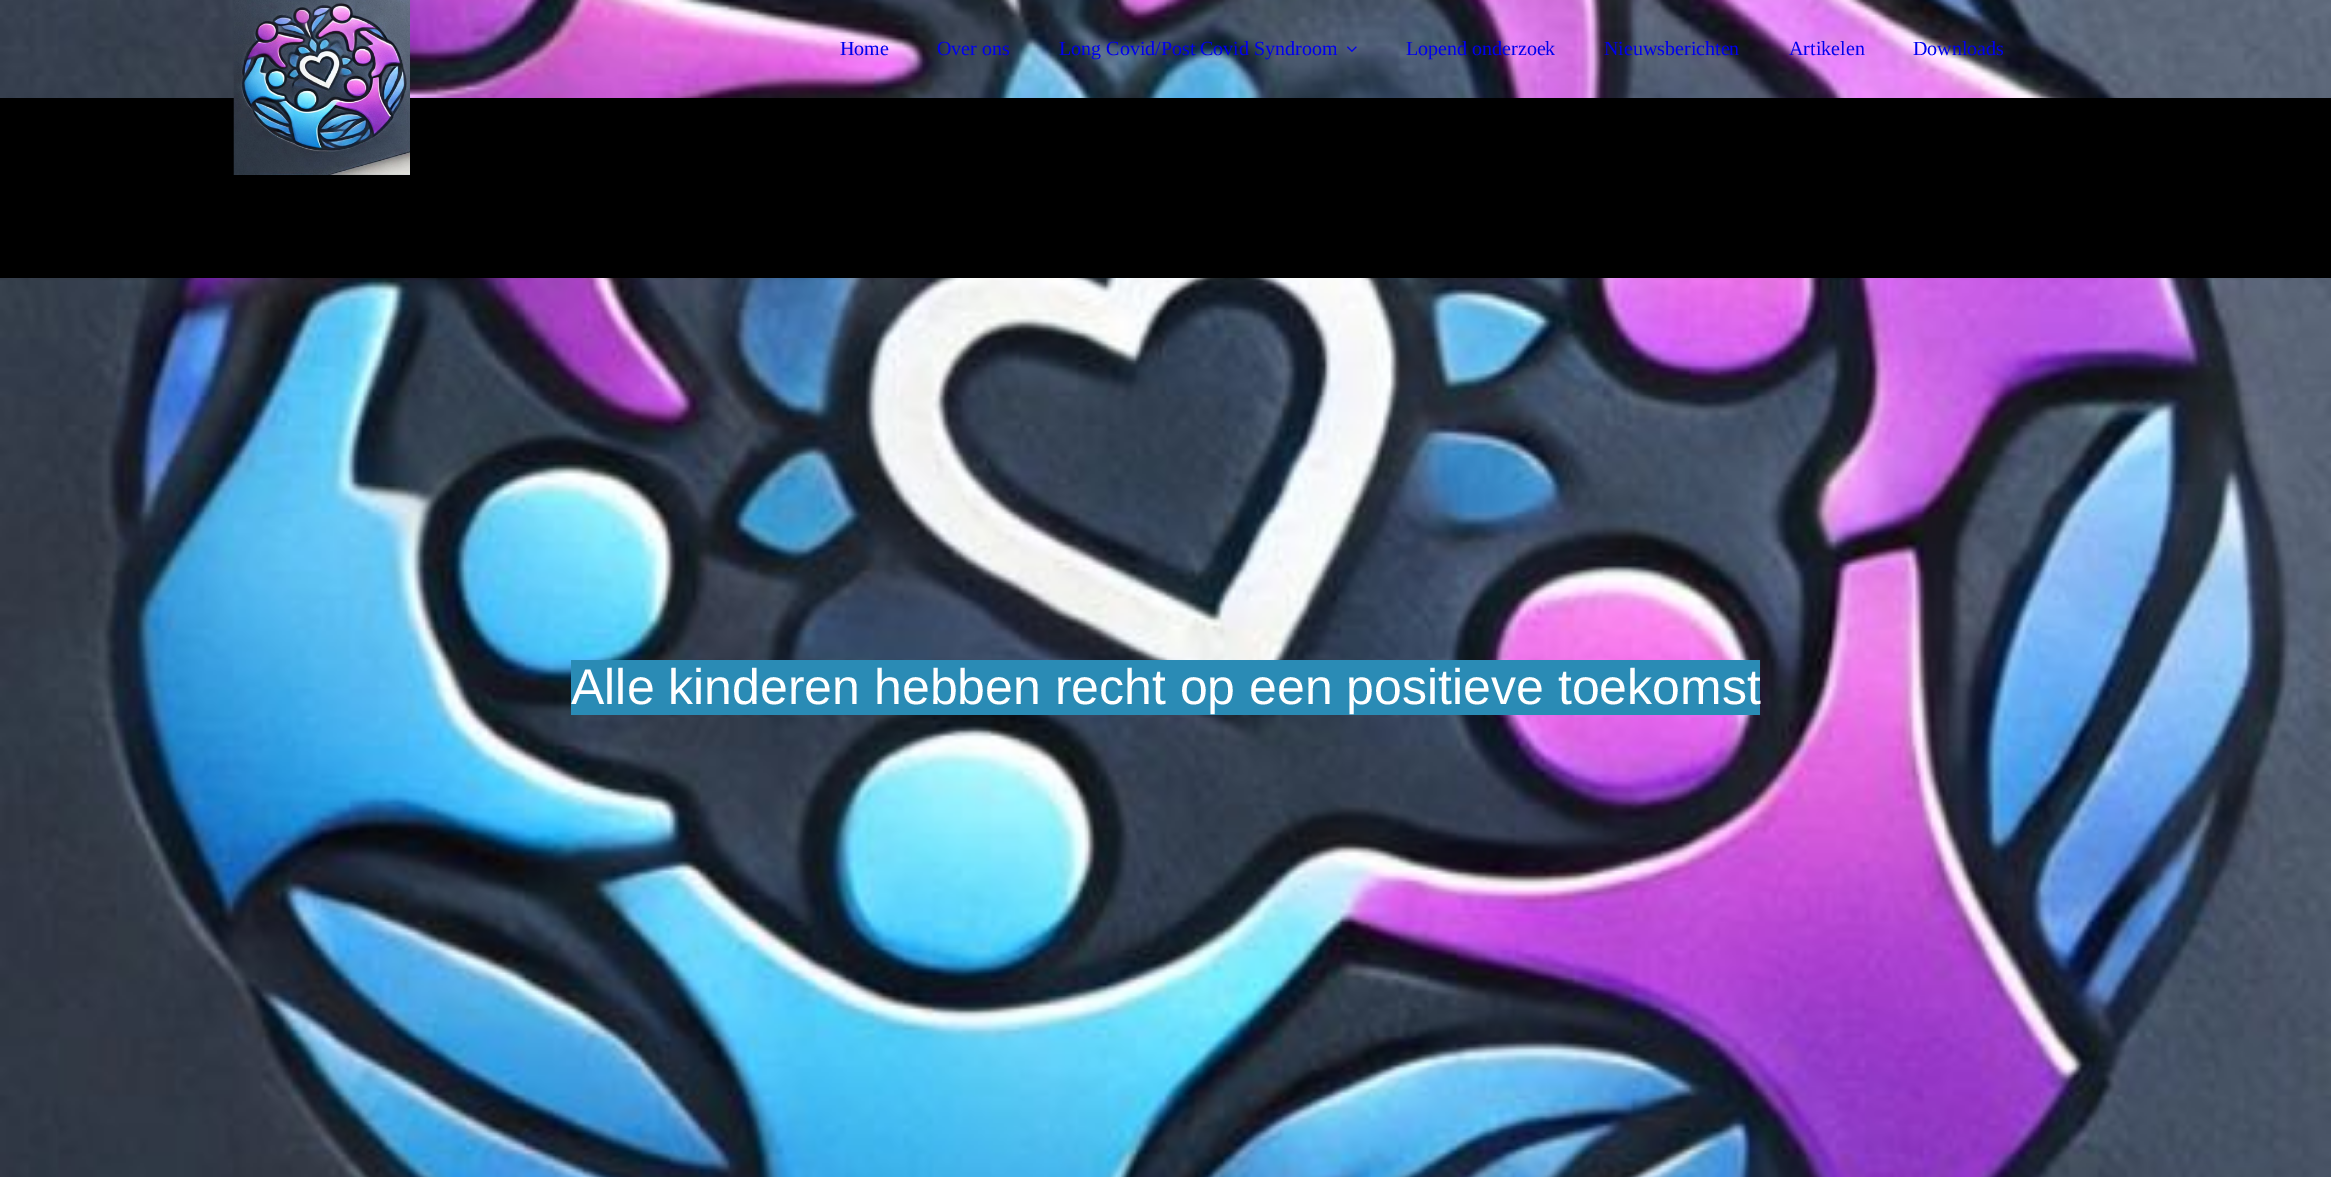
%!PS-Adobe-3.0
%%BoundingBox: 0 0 2331 1177
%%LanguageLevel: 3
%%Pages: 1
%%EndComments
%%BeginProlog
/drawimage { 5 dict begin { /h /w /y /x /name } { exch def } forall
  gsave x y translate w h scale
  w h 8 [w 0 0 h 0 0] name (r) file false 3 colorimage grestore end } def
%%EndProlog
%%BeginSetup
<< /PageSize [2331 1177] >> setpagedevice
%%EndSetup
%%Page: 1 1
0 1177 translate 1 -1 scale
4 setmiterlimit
1 setgray
0 0 2331 1177 rectfill
(images/3.raw) 0 0 2331 1177 drawimage
0 setgray
0 98 2331 180 rectfill
(images/1.raw) 233 0 177 175 drawimage
(images/2.raw) 1347 46 10 6 drawimage
0.165 0.545 0.71 setrgbcolor
571 660 1189 55 rectfill
/LiberationSerif-Regular [20 0 0 -20 0 0] selectfont
0 0 0.933 setrgbcolor
840 55 moveto (Home) show
937 55 moveto (Over ons) show
1059 55 moveto (Long Covid/Post Covid Syndroom) show
1406 55 moveto (Lopend onderzoek) show
1604 55 moveto (Nieuwsberichten) show
1789 55 moveto (Artikelen) show
1913 55 moveto (Downloads) show
/LiberationSans-Regular [50 0 0 -50 0 0] selectfont
1 setgray
571 704 moveto (Alle kinderen hebben recht op een positieve toekomst) show
showpage
%%EOF
